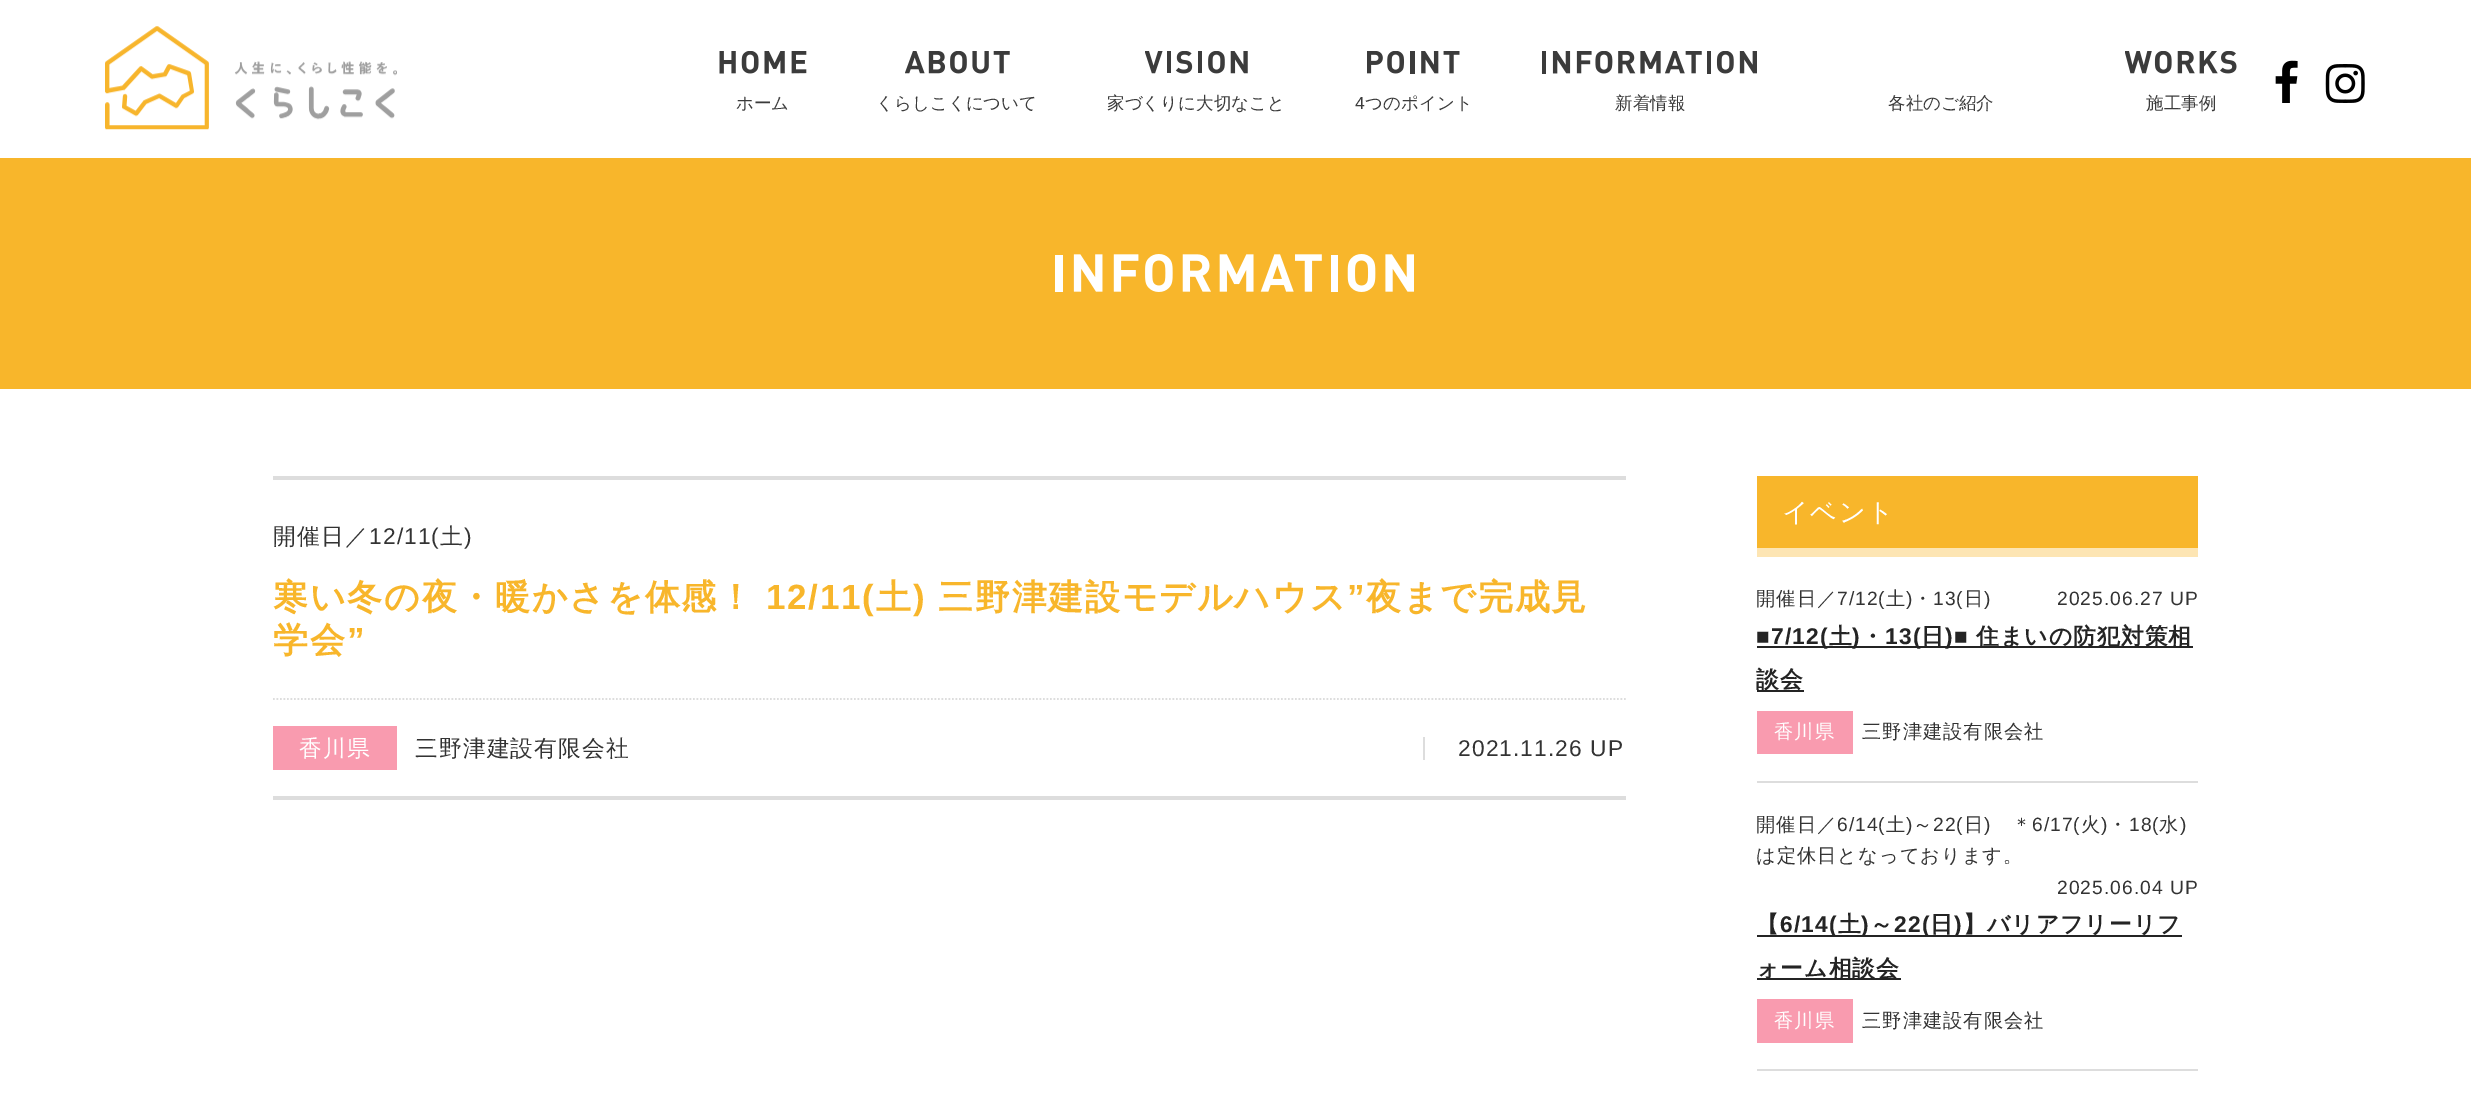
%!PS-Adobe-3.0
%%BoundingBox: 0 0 2471 1107
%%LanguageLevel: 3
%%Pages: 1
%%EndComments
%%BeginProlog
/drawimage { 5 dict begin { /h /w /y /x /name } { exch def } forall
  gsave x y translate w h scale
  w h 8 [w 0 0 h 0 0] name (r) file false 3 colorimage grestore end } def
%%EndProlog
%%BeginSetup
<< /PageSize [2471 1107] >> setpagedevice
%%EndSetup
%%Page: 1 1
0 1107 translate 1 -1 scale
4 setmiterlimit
1 setgray
0 0 2471 1107 rectfill
(images/1.raw) 105 26 292 104 drawimage
(images/2.raw) 719 51 88 23 drawimage
(images/3.raw) 905 51 105 23 drawimage
(images/4.raw) 1145 51 103 23 drawimage
(images/5.raw) 1367 51 93 23 drawimage
(images/6.raw) 1542 51 215 23 drawimage
(images/7.raw) 2125 51 112 23 drawimage
(images/8.raw) 2275 60 23 43 drawimage
(images/9.raw) 2325 64 40 39 drawimage
0.973 0.714 0.169 setrgbcolor
0 158 2471 231 rectfill
(images/10.raw) 1055 254 359 38 drawimage
0.867 setgray
273 476 1353 4 rectfill
273 796 1353 4 rectfill
1.8 setlinewidth
[1.75 1.75] 0 setdash
newpath 273 699 moveto 1626 699 lineto stroke
0.976 0.608 0.686 setrgbcolor
273 726 124 44 rectfill
0.867 setgray
1423 737 2 23 rectfill
0.973 0.714 0.169 setrgbcolor
1757 476 441 72 rectfill
0.992 0.898 0.702 setrgbcolor
1757 548 441 9 rectfill
0.867 setgray
1757 781 441 2 rectfill
0.141 setgray
1757 646 436 2 rectfill
1757 690 47 2 rectfill
0.976 0.608 0.686 setrgbcolor
1757 711 96 43 rectfill
0.867 setgray
1757 1069 441 2 rectfill
0.141 setgray
1757 935 425 2 rectfill
1757 978 144 2 rectfill
0.976 0.608 0.686 setrgbcolor
1757 999 96 44 rectfill
/WenQuanYiZenHei-Medium [17.5 0 0 -17.5 0 0] selectfont
0.231 setgray
736 109 moveto (ホーム) show
876 109 moveto (くらしこくについて) show
1107 109 moveto (家づくりに大切なこと) show
/LiberationSans-Regular [17.5 0 0 -17.5 0 0] selectfont
1355 109 moveto (4) show
/WenQuanYiZenHei-Medium [17.5 0 0 -17.5 0 0] selectfont
1365 109 moveto (つのポイント) show
1615 109 moveto (新着情報) show
1888 109 moveto (各社のご紹介) show
2146 109 moveto (施工事例) show
/WenQuanYiZenHei-Medium [22.75 0 0 -22.75 0 0] selectfont
0.2 setgray
273 544 moveto 1.1 0 (開催日／) ashow
/LiberationSans-Regular [22.75 0 0 -22.75 0 0] selectfont
369 544 moveto 1.1 0 (12/11\() ashow
/WenQuanYiZenHei-Medium [22.75 0 0 -22.75 0 0] selectfont
440 544 moveto 1.1 0 (土) ashow
/LiberationSans-Regular [22.75 0 0 -22.75 0 0] selectfont
464 544 moveto 1.1 0 (\)) ashow
/WenQuanYiZenHei-Bold [35 0 0 -35 0 0] selectfont
0.973 0.714 0.169 setrgbcolor
273 609 moveto 1.75 0 (寒い冬の夜・暖かさを体感！) ashow
/LiberationSans-Bold [35 0 0 -35 0 0] selectfont
766 609 moveto 1.75 0 (12/11\() ashow
/WenQuanYiZenHei-Bold [35 0 0 -35 0 0] selectfont
876 609 moveto 1.75 0 (土) ashow
/LiberationSans-Bold [35 0 0 -35 0 0] selectfont
913 609 moveto 1.75 0 (\)) ashow
/WenQuanYiZenHei-Bold [35 0 0 -35 0 0] selectfont
938 609 moveto 1.75 0 (三野津建設モデルハウス) ashow
/LiberationSans-Bold [35 0 0 -35 0 0] selectfont
1347 609 moveto 1.75 0 (”) ashow
/WenQuanYiZenHei-Bold [35 0 0 -35 0 0] selectfont
1366 609 moveto 1.75 0 (夜まで完成見) ashow
273 652 moveto 1.75 0 (学会) ashow
/LiberationSans-Bold [35 0 0 -35 0 0] selectfont
347 652 moveto 1.75 0 (”) ashow
/WenQuanYiZenHei-Medium [22.75 0 0 -22.75 0 0] selectfont
1 setgray
299 756 moveto 1.1 0 (香川県) ashow
0.2 setgray
415 756 moveto 1.1 0 (三野津建設有限会社) ashow
/LiberationSans-Regular [22.75 0 0 -22.75 0 0] selectfont
1458 756 moveto 1.1 0 (2021.11.26 UP) ashow
/WenQuanYiZenHei-Medium [26.25 0 0 -26.25 0 0] selectfont
1 setgray
1782 521 moveto 1.5 0 (イベント) ashow
/WenQuanYiZenHei-Medium [19.25 0 0 -19.25 0 0] selectfont
0.2 setgray
1756 605 moveto 1 0 (開催日／) ashow
/LiberationSans-Regular [19.25 0 0 -19.25 0 0] selectfont
1837 605 moveto 1 0 (7/12\() ashow
/WenQuanYiZenHei-Medium [19.25 0 0 -19.25 0 0] selectfont
1886 605 moveto 1 0 (土) ashow
/LiberationSans-Regular [19.25 0 0 -19.25 0 0] selectfont
1906 605 moveto 1 0 (\)) ashow
/WenQuanYiZenHei-Medium [19.25 0 0 -19.25 0 0] selectfont
1913 605 moveto 1 0 (・) ashow
/LiberationSans-Regular [19.25 0 0 -19.25 0 0] selectfont
1933 605 moveto 1 0 (13\() ashow
/WenQuanYiZenHei-Medium [19.25 0 0 -19.25 0 0] selectfont
1964 605 moveto 1 0 (日) ashow
/LiberationSans-Regular [19.25 0 0 -19.25 0 0] selectfont
1984 605 moveto 1 0 (\)) ashow
2057 605 moveto 1 0 (2025.06.27 UP) ashow
/LiberationSans-Bold [22.75 0 0 -22.75 0 0] selectfont
0.141 setgray
1756 644 moveto 1.1 0 (■7/12\() ashow
/WenQuanYiZenHei-Bold [22.75 0 0 -22.75 0 0] selectfont
1829 644 moveto 1.1 0 (土) ashow
/LiberationSans-Bold [22.75 0 0 -22.75 0 0] selectfont
1852 644 moveto 1.1 0 (\)) ashow
/WenQuanYiZenHei-Bold [22.75 0 0 -22.75 0 0] selectfont
1861 644 moveto 1.1 0 (・) ashow
/LiberationSans-Bold [22.75 0 0 -22.75 0 0] selectfont
1885 644 moveto 1.1 0 (13\() ashow
/WenQuanYiZenHei-Bold [22.75 0 0 -22.75 0 0] selectfont
1921 644 moveto 1.1 0 (日) ashow
/LiberationSans-Bold [22.75 0 0 -22.75 0 0] selectfont
1945 644 moveto 1.1 0 (\)■) ashow
/WenQuanYiZenHei-Bold [22.75 0 0 -22.75 0 0] selectfont
1976 644 moveto 1.1 0 (住まいの防犯対策相) ashow
1756 687 moveto 1.1 0 (談会) ashow
/WenQuanYiZenHei-Medium [19.25 0 0 -19.25 0 0] selectfont
1 setgray
1774 738 moveto 1 0 (香川県) ashow
0.2 setgray
1862 738 moveto 1 0 (三野津建設有限会社) ashow
1756 831 moveto 1 0 (開催日／) ashow
/LiberationSans-Regular [19.25 0 0 -19.25 0 0] selectfont
1837 831 moveto 1 0 (6/14\() ashow
/WenQuanYiZenHei-Medium [19.25 0 0 -19.25 0 0] selectfont
1886 831 moveto 1 0 (土) ashow
/LiberationSans-Regular [19.25 0 0 -19.25 0 0] selectfont
1906 831 moveto 1 0 (\)) ashow
/WenQuanYiZenHei-Medium [19.25 0 0 -19.25 0 0] selectfont
1913 831 moveto 1 0 (～) ashow
/LiberationSans-Regular [19.25 0 0 -19.25 0 0] selectfont
1933 831 moveto 1 0 (22\() ashow
/WenQuanYiZenHei-Medium [19.25 0 0 -19.25 0 0] selectfont
1964 831 moveto 1 0 (日) ashow
/LiberationSans-Regular [19.25 0 0 -19.25 0 0] selectfont
1984 831 moveto 1 0 (\)) ashow
/WenQuanYiZenHei-Medium [19.25 0 0 -19.25 0 0] selectfont
2012 831 moveto 1 0 (＊) ashow
/LiberationSans-Regular [19.25 0 0 -19.25 0 0] selectfont
2032 831 moveto 1 0 (6/17\() ashow
/WenQuanYiZenHei-Medium [19.25 0 0 -19.25 0 0] selectfont
2081 831 moveto 1 0 (火) ashow
/LiberationSans-Regular [19.25 0 0 -19.25 0 0] selectfont
2101 831 moveto 1 0 (\)) ashow
/WenQuanYiZenHei-Medium [19.25 0 0 -19.25 0 0] selectfont
2108 831 moveto 1 0 (・) ashow
/LiberationSans-Regular [19.25 0 0 -19.25 0 0] selectfont
2129 831 moveto 1 0 (18\() ashow
/WenQuanYiZenHei-Medium [19.25 0 0 -19.25 0 0] selectfont
2159 831 moveto 1 0 (水) ashow
/LiberationSans-Regular [19.25 0 0 -19.25 0 0] selectfont
2180 831 moveto 1 0 (\)) ashow
/WenQuanYiZenHei-Medium [19.25 0 0 -19.25 0 0] selectfont
1756 862 moveto 1 0 (は定休日となっております。) ashow
/LiberationSans-Regular [19.25 0 0 -19.25 0 0] selectfont
2057 894 moveto 1 0 (2025.06.04 UP) ashow
/WenQuanYiZenHei-Bold [22.75 0 0 -22.75 0 0] selectfont
0.141 setgray
1756 932 moveto 1.1 0 (【) ashow
/LiberationSans-Bold [22.75 0 0 -22.75 0 0] selectfont
1780 932 moveto 1.1 0 (6/14\() ashow
/WenQuanYiZenHei-Bold [22.75 0 0 -22.75 0 0] selectfont
1838 932 moveto 1.1 0 (土) ashow
/LiberationSans-Bold [22.75 0 0 -22.75 0 0] selectfont
1861 932 moveto 1.1 0 (\)) ashow
/WenQuanYiZenHei-Bold [22.75 0 0 -22.75 0 0] selectfont
1870 932 moveto 1.1 0 (～) ashow
/LiberationSans-Bold [22.75 0 0 -22.75 0 0] selectfont
1894 932 moveto 1.1 0 (22\() ashow
/WenQuanYiZenHei-Bold [22.75 0 0 -22.75 0 0] selectfont
1930 932 moveto 1.1 0 (日) ashow
/LiberationSans-Bold [22.75 0 0 -22.75 0 0] selectfont
1954 932 moveto 1.1 0 (\)) ashow
/WenQuanYiZenHei-Bold [22.75 0 0 -22.75 0 0] selectfont
1963 932 moveto 1.1 0 (】バリアフリーリフ) ashow
1756 976 moveto 1.1 0 (ォーム相談会) ashow
/WenQuanYiZenHei-Medium [19.25 0 0 -19.25 0 0] selectfont
1 setgray
1774 1027 moveto 1 0 (香川県) ashow
0.2 setgray
1862 1027 moveto 1 0 (三野津建設有限会社) ashow
showpage
%%EOF
